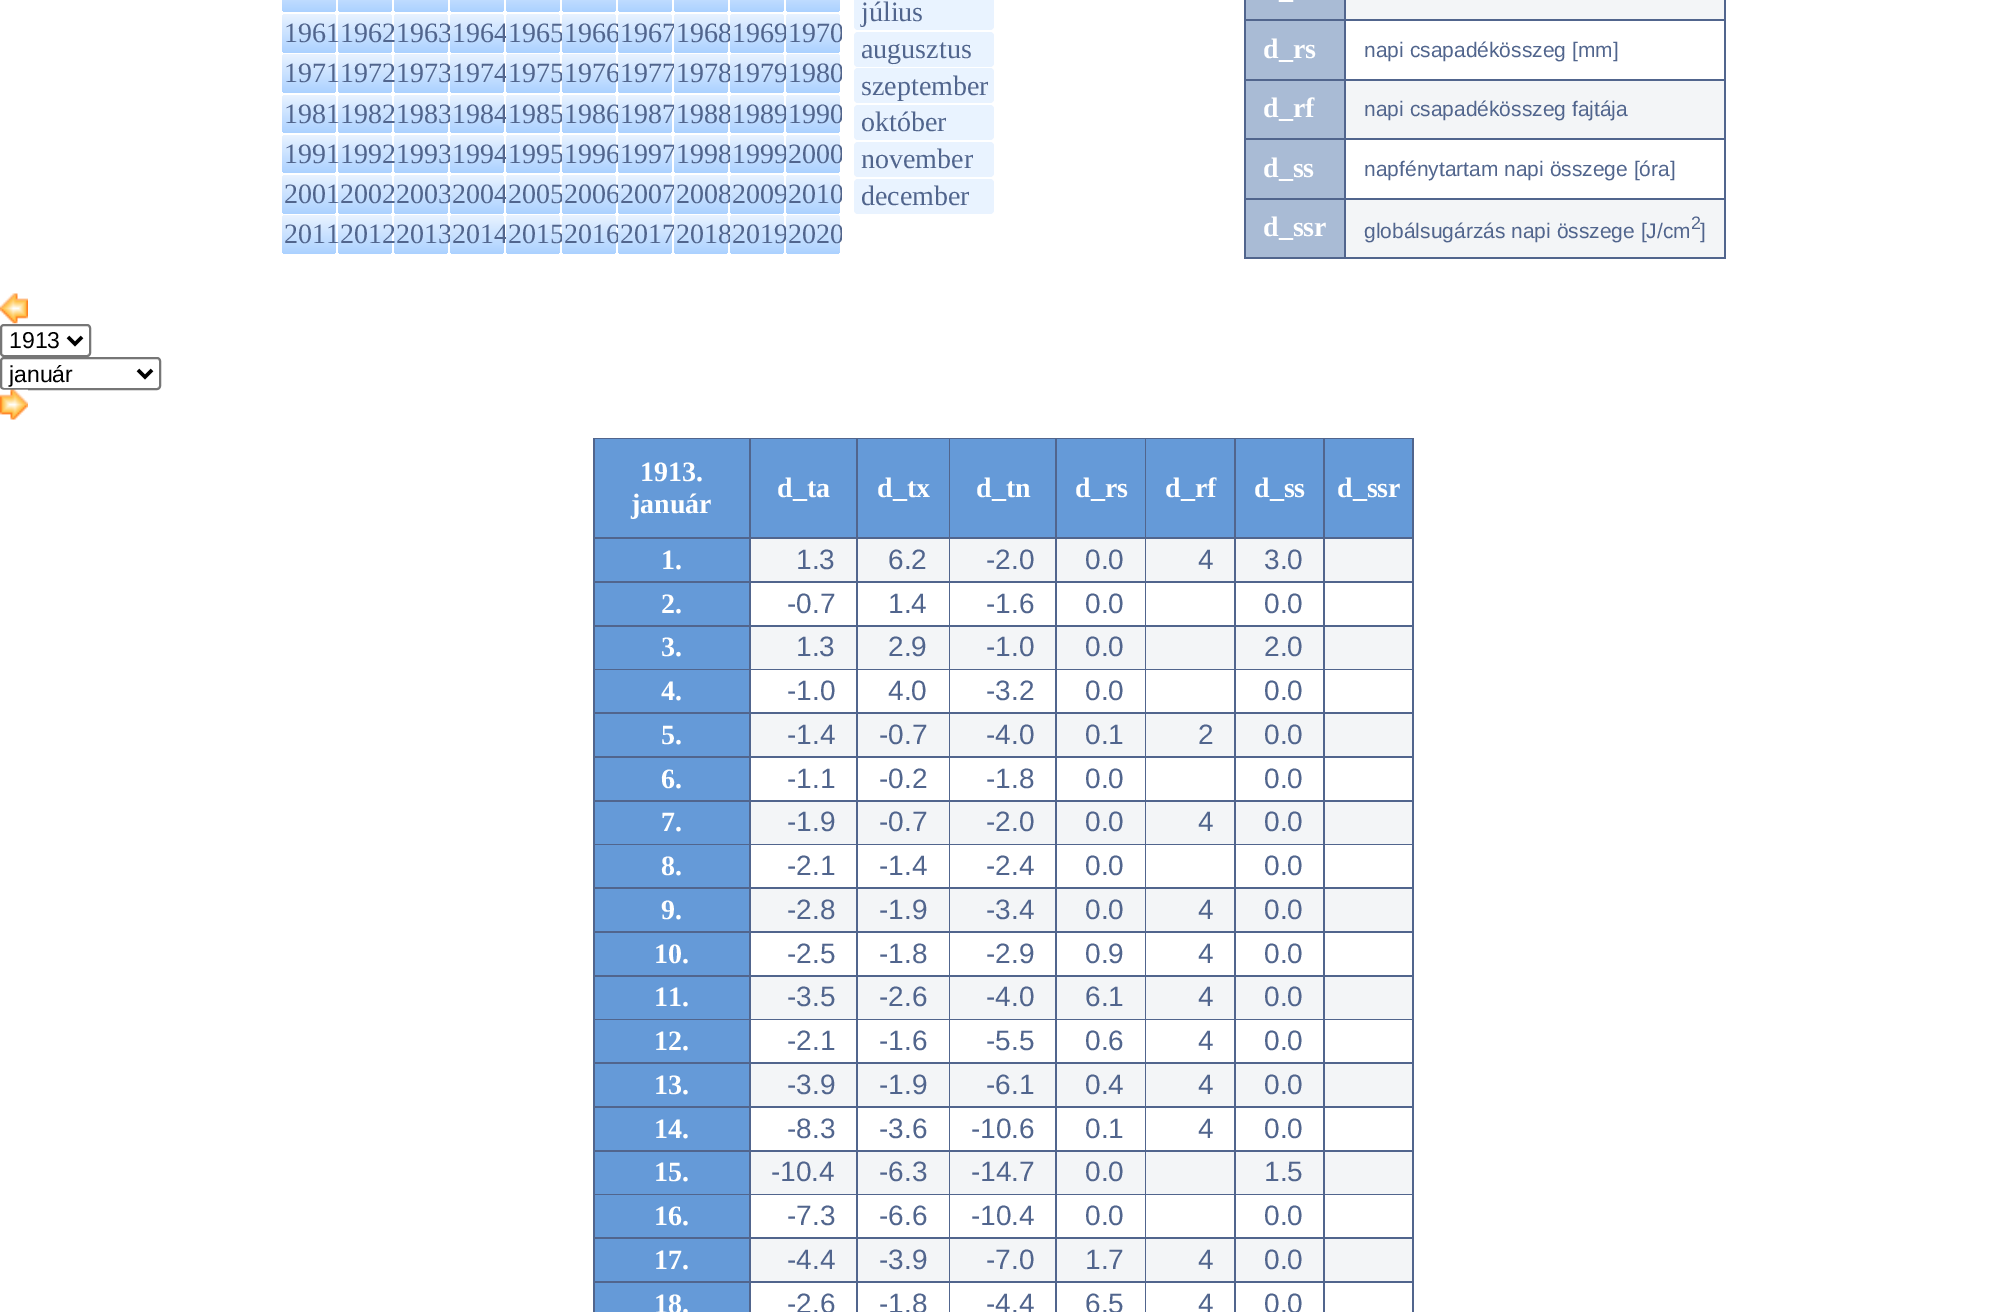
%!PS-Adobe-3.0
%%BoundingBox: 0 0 2007 1312
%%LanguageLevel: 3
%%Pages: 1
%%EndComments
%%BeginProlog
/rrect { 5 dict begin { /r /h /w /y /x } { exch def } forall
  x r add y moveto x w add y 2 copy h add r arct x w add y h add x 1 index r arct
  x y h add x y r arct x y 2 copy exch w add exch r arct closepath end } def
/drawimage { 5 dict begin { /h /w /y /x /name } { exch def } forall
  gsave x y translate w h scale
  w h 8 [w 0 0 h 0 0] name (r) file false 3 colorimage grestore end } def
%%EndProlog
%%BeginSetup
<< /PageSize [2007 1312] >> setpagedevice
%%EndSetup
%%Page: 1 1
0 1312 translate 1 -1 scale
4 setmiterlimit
1 setgray
0 0 2007 1312 rectfill
gsave 282 -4 54 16 4 rrect clip newpath
<< /ShadingType 2 /ColorSpace /DeviceRGB /Coords [309 -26 309 12] /Extend [true true] /Function << /FunctionType 2 /Domain [0 1] /C0 [0.914 0.953 1] /C1 [0.671 0.82 1] /N 1 >> >> shfill grestore
gsave 338 -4 54 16 4 rrect clip newpath
<< /ShadingType 2 /ColorSpace /DeviceRGB /Coords [365 -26 365 12] /Extend [true true] /Function << /FunctionType 2 /Domain [0 1] /C0 [0.914 0.953 1] /C1 [0.671 0.82 1] /N 1 >> >> shfill grestore
gsave 394 -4 54 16 4 rrect clip newpath
<< /ShadingType 2 /ColorSpace /DeviceRGB /Coords [421 -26 421 12] /Extend [true true] /Function << /FunctionType 2 /Domain [0 1] /C0 [0.914 0.953 1] /C1 [0.671 0.82 1] /N 1 >> >> shfill grestore
gsave 450 -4 54 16 4 rrect clip newpath
<< /ShadingType 2 /ColorSpace /DeviceRGB /Coords [477 -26 477 12] /Extend [true true] /Function << /FunctionType 2 /Domain [0 1] /C0 [0.914 0.953 1] /C1 [0.671 0.82 1] /N 1 >> >> shfill grestore
gsave 506 -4 54 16 4 rrect clip newpath
<< /ShadingType 2 /ColorSpace /DeviceRGB /Coords [533 -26 533 12] /Extend [true true] /Function << /FunctionType 2 /Domain [0 1] /C0 [0.914 0.953 1] /C1 [0.671 0.82 1] /N 1 >> >> shfill grestore
gsave 562 -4 54 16 4 rrect clip newpath
<< /ShadingType 2 /ColorSpace /DeviceRGB /Coords [589 -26 589 12] /Extend [true true] /Function << /FunctionType 2 /Domain [0 1] /C0 [0.914 0.953 1] /C1 [0.671 0.82 1] /N 1 >> >> shfill grestore
gsave 618 -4 54 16 4 rrect clip newpath
<< /ShadingType 2 /ColorSpace /DeviceRGB /Coords [645 -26 645 12] /Extend [true true] /Function << /FunctionType 2 /Domain [0 1] /C0 [0.914 0.953 1] /C1 [0.671 0.82 1] /N 1 >> >> shfill grestore
gsave 674 -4 54 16 4 rrect clip newpath
<< /ShadingType 2 /ColorSpace /DeviceRGB /Coords [701 -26 701 12] /Extend [true true] /Function << /FunctionType 2 /Domain [0 1] /C0 [0.914 0.953 1] /C1 [0.671 0.82 1] /N 1 >> >> shfill grestore
gsave 730 -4 54 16 4 rrect clip newpath
<< /ShadingType 2 /ColorSpace /DeviceRGB /Coords [757 -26 757 12] /Extend [true true] /Function << /FunctionType 2 /Domain [0 1] /C0 [0.914 0.953 1] /C1 [0.671 0.82 1] /N 1 >> >> shfill grestore
gsave 786 -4 54 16 4 rrect clip newpath
<< /ShadingType 2 /ColorSpace /DeviceRGB /Coords [813 -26 813 12] /Extend [true true] /Function << /FunctionType 2 /Domain [0 1] /C0 [0.914 0.953 1] /C1 [0.671 0.82 1] /N 1 >> >> shfill grestore
gsave 282 14 54 39 4 rrect clip newpath
<< /ShadingType 2 /ColorSpace /DeviceRGB /Coords [309 14 309 53] /Extend [true true] /Function << /FunctionType 2 /Domain [0 1] /C0 [0.914 0.953 1] /C1 [0.671 0.82 1] /N 1 >> >> shfill grestore
gsave 338 14 54 39 4 rrect clip newpath
<< /ShadingType 2 /ColorSpace /DeviceRGB /Coords [365 14 365 53] /Extend [true true] /Function << /FunctionType 2 /Domain [0 1] /C0 [0.914 0.953 1] /C1 [0.671 0.82 1] /N 1 >> >> shfill grestore
gsave 394 14 54 39 4 rrect clip newpath
<< /ShadingType 2 /ColorSpace /DeviceRGB /Coords [421 14 421 53] /Extend [true true] /Function << /FunctionType 2 /Domain [0 1] /C0 [0.914 0.953 1] /C1 [0.671 0.82 1] /N 1 >> >> shfill grestore
gsave 282 54 54 39 4 rrect clip newpath
<< /ShadingType 2 /ColorSpace /DeviceRGB /Coords [309 54 309 93] /Extend [true true] /Function << /FunctionType 2 /Domain [0 1] /C0 [0.914 0.953 1] /C1 [0.671 0.82 1] /N 1 >> >> shfill grestore
gsave 338 54 54 39 4 rrect clip newpath
<< /ShadingType 2 /ColorSpace /DeviceRGB /Coords [365 54 365 93] /Extend [true true] /Function << /FunctionType 2 /Domain [0 1] /C0 [0.914 0.953 1] /C1 [0.671 0.82 1] /N 1 >> >> shfill grestore
gsave 394 54 54 39 4 rrect clip newpath
<< /ShadingType 2 /ColorSpace /DeviceRGB /Coords [421 54 421 93] /Extend [true true] /Function << /FunctionType 2 /Domain [0 1] /C0 [0.914 0.953 1] /C1 [0.671 0.82 1] /N 1 >> >> shfill grestore
gsave 282 95 54 38 4 rrect clip newpath
<< /ShadingType 2 /ColorSpace /DeviceRGB /Coords [309 95 309 133] /Extend [true true] /Function << /FunctionType 2 /Domain [0 1] /C0 [0.914 0.953 1] /C1 [0.671 0.82 1] /N 1 >> >> shfill grestore
gsave 338 95 54 38 4 rrect clip newpath
<< /ShadingType 2 /ColorSpace /DeviceRGB /Coords [365 95 365 133] /Extend [true true] /Function << /FunctionType 2 /Domain [0 1] /C0 [0.914 0.953 1] /C1 [0.671 0.82 1] /N 1 >> >> shfill grestore
gsave 394 95 54 38 4 rrect clip newpath
<< /ShadingType 2 /ColorSpace /DeviceRGB /Coords [421 95 421 133] /Extend [true true] /Function << /FunctionType 2 /Domain [0 1] /C0 [0.914 0.953 1] /C1 [0.671 0.82 1] /N 1 >> >> shfill grestore
gsave 282 135 54 38 4 rrect clip newpath
<< /ShadingType 2 /ColorSpace /DeviceRGB /Coords [309 135 309 173] /Extend [true true] /Function << /FunctionType 2 /Domain [0 1] /C0 [0.914 0.953 1] /C1 [0.671 0.82 1] /N 1 >> >> shfill grestore
gsave 338 135 54 38 4 rrect clip newpath
<< /ShadingType 2 /ColorSpace /DeviceRGB /Coords [365 135 365 173] /Extend [true true] /Function << /FunctionType 2 /Domain [0 1] /C0 [0.914 0.953 1] /C1 [0.671 0.82 1] /N 1 >> >> shfill grestore
gsave 394 135 54 38 4 rrect clip newpath
<< /ShadingType 2 /ColorSpace /DeviceRGB /Coords [421 135 421 173] /Extend [true true] /Function << /FunctionType 2 /Domain [0 1] /C0 [0.914 0.953 1] /C1 [0.671 0.82 1] /N 1 >> >> shfill grestore
gsave 282 175 54 39 4 rrect clip newpath
<< /ShadingType 2 /ColorSpace /DeviceRGB /Coords [309 175 309 214] /Extend [true true] /Function << /FunctionType 2 /Domain [0 1] /C0 [0.914 0.953 1] /C1 [0.671 0.82 1] /N 1 >> >> shfill grestore
gsave 338 175 54 39 4 rrect clip newpath
<< /ShadingType 2 /ColorSpace /DeviceRGB /Coords [365 175 365 214] /Extend [true true] /Function << /FunctionType 2 /Domain [0 1] /C0 [0.914 0.953 1] /C1 [0.671 0.82 1] /N 1 >> >> shfill grestore
gsave 394 175 54 39 4 rrect clip newpath
<< /ShadingType 2 /ColorSpace /DeviceRGB /Coords [421 175 421 214] /Extend [true true] /Function << /FunctionType 2 /Domain [0 1] /C0 [0.914 0.953 1] /C1 [0.671 0.82 1] /N 1 >> >> shfill grestore
gsave 282 215 54 39 4 rrect clip newpath
<< /ShadingType 2 /ColorSpace /DeviceRGB /Coords [309 215 309 254] /Extend [true true] /Function << /FunctionType 2 /Domain [0 1] /C0 [0.914 0.953 1] /C1 [0.671 0.82 1] /N 1 >> >> shfill grestore
gsave 338 215 54 39 4 rrect clip newpath
<< /ShadingType 2 /ColorSpace /DeviceRGB /Coords [365 215 365 254] /Extend [true true] /Function << /FunctionType 2 /Domain [0 1] /C0 [0.914 0.953 1] /C1 [0.671 0.82 1] /N 1 >> >> shfill grestore
gsave 394 215 54 39 4 rrect clip newpath
<< /ShadingType 2 /ColorSpace /DeviceRGB /Coords [421 215 421 254] /Extend [true true] /Function << /FunctionType 2 /Domain [0 1] /C0 [0.914 0.953 1] /C1 [0.671 0.82 1] /N 1 >> >> shfill grestore
0.914 0.953 1 setrgbcolor
854 -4 140 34 4 rrect fill
854 32 140 35 4 rrect fill
854 68 140 35 4 rrect fill
854 105 140 35 4 rrect fill
854 142 140 35 4 rrect fill
854 179 140 35 4 rrect fill
0.318 0.396 0.553 setrgbcolor
1244 0 482 259 rectfill
0.663 0.733 0.835 setrgbcolor
1246 0 98 19 rectfill
0.953 0.961 0.969 setrgbcolor
1346 0 378 19 rectfill
0.663 0.733 0.835 setrgbcolor
1246 21 98 58 rectfill
1 setgray
1346 21 378 58 rectfill
0.663 0.733 0.835 setrgbcolor
1246 81 98 57 rectfill
0.953 0.961 0.969 setrgbcolor
1346 81 378 57 rectfill
0.663 0.733 0.835 setrgbcolor
1246 140 98 58 rectfill
1 setgray
1346 140 378 58 rectfill
0.663 0.733 0.835 setrgbcolor
1246 200 98 57 rectfill
0.953 0.961 0.969 setrgbcolor
1346 200 378 57 rectfill
(images/1.raw) 0 293 28 31 drawimage
0.463 setgray
2 setlinewidth
1 325 89 31 3 rrect stroke
0 setgray
3.5 setlinewidth
newpath 68 337 moveto 75 344 lineto 82 337 lineto stroke
0.463 setgray
2 setlinewidth
1 358 159 31 3 rrect stroke
0 setgray
3.5 setlinewidth
newpath 138 370 moveto 145 377 lineto 152 370 lineto stroke
(images/2.raw) 0 389 28 31 drawimage
0.318 0.396 0.553 setrgbcolor
593 438 821 874 rectfill
0.396 0.604 0.847 setrgbcolor
595 439 154 98 rectfill
751 439 105 98 rectfill
858 439 91 98 rectfill
950 439 105 98 rectfill
1057 439 88 98 rectfill
1146 439 88 98 rectfill
1236 439 87 98 rectfill
1325 439 87 98 rectfill
595 539 154 42 rectfill
0.953 0.961 0.969 setrgbcolor
751 539 105 42 rectfill
858 539 91 42 rectfill
950 539 105 42 rectfill
1057 539 88 42 rectfill
1146 539 88 42 rectfill
1236 539 87 42 rectfill
1325 539 87 42 rectfill
0.396 0.604 0.847 setrgbcolor
595 583 154 42 rectfill
1 setgray
751 583 105 42 rectfill
858 583 91 42 rectfill
950 583 105 42 rectfill
1057 583 88 42 rectfill
1146 583 88 42 rectfill
1236 583 87 42 rectfill
1325 583 87 42 rectfill
0.396 0.604 0.847 setrgbcolor
595 627 154 42 rectfill
0.953 0.961 0.969 setrgbcolor
751 627 105 42 rectfill
858 627 91 42 rectfill
950 627 105 42 rectfill
1057 627 88 42 rectfill
1146 627 88 42 rectfill
1236 627 87 42 rectfill
1325 627 87 42 rectfill
0.396 0.604 0.847 setrgbcolor
595 670 154 42 rectfill
1 setgray
751 670 105 42 rectfill
858 670 91 42 rectfill
950 670 105 42 rectfill
1057 670 88 42 rectfill
1146 670 88 42 rectfill
1236 670 87 42 rectfill
1325 670 87 42 rectfill
0.396 0.604 0.847 setrgbcolor
595 714 154 42 rectfill
0.953 0.961 0.969 setrgbcolor
751 714 105 42 rectfill
858 714 91 42 rectfill
950 714 105 42 rectfill
1057 714 88 42 rectfill
1146 714 88 42 rectfill
1236 714 87 42 rectfill
1325 714 87 42 rectfill
0.396 0.604 0.847 setrgbcolor
595 758 154 42 rectfill
1 setgray
751 758 105 42 rectfill
858 758 91 42 rectfill
950 758 105 42 rectfill
1057 758 88 42 rectfill
1146 758 88 42 rectfill
1236 758 87 42 rectfill
1325 758 87 42 rectfill
0.396 0.604 0.847 setrgbcolor
595 802 154 42 rectfill
0.953 0.961 0.969 setrgbcolor
751 802 105 42 rectfill
858 802 91 42 rectfill
950 802 105 42 rectfill
1057 802 88 42 rectfill
1146 802 88 42 rectfill
1236 802 87 42 rectfill
1325 802 87 42 rectfill
0.396 0.604 0.847 setrgbcolor
595 845 154 42 rectfill
1 setgray
751 845 105 42 rectfill
858 845 91 42 rectfill
950 845 105 42 rectfill
1057 845 88 42 rectfill
1146 845 88 42 rectfill
1236 845 87 42 rectfill
1325 845 87 42 rectfill
0.396 0.604 0.847 setrgbcolor
595 889 154 42 rectfill
0.953 0.961 0.969 setrgbcolor
751 889 105 42 rectfill
858 889 91 42 rectfill
950 889 105 42 rectfill
1057 889 88 42 rectfill
1146 889 88 42 rectfill
1236 889 87 42 rectfill
1325 889 87 42 rectfill
0.396 0.604 0.847 setrgbcolor
595 933 154 42 rectfill
1 setgray
751 933 105 42 rectfill
858 933 91 42 rectfill
950 933 105 42 rectfill
1057 933 88 42 rectfill
1146 933 88 42 rectfill
1236 933 87 42 rectfill
1325 933 87 42 rectfill
0.396 0.604 0.847 setrgbcolor
595 977 154 42 rectfill
0.953 0.961 0.969 setrgbcolor
751 977 105 42 rectfill
858 977 91 42 rectfill
950 977 105 42 rectfill
1057 977 88 42 rectfill
1146 977 88 42 rectfill
1236 977 87 42 rectfill
1325 977 87 42 rectfill
0.396 0.604 0.847 setrgbcolor
595 1020 154 42 rectfill
1 setgray
751 1020 105 42 rectfill
858 1020 91 42 rectfill
950 1020 105 42 rectfill
1057 1020 88 42 rectfill
1146 1020 88 42 rectfill
1236 1020 87 42 rectfill
1325 1020 87 42 rectfill
0.396 0.604 0.847 setrgbcolor
595 1064 154 42 rectfill
0.953 0.961 0.969 setrgbcolor
751 1064 105 42 rectfill
858 1064 91 42 rectfill
950 1064 105 42 rectfill
1057 1064 88 42 rectfill
1146 1064 88 42 rectfill
1236 1064 87 42 rectfill
1325 1064 87 42 rectfill
0.396 0.604 0.847 setrgbcolor
595 1108 154 42 rectfill
1 setgray
751 1108 105 42 rectfill
858 1108 91 42 rectfill
950 1108 105 42 rectfill
1057 1108 88 42 rectfill
1146 1108 88 42 rectfill
1236 1108 87 42 rectfill
1325 1108 87 42 rectfill
0.396 0.604 0.847 setrgbcolor
595 1152 154 42 rectfill
0.953 0.961 0.969 setrgbcolor
751 1152 105 42 rectfill
858 1152 91 42 rectfill
950 1152 105 42 rectfill
1057 1152 88 42 rectfill
1146 1152 88 42 rectfill
1236 1152 87 42 rectfill
1325 1152 87 42 rectfill
0.396 0.604 0.847 setrgbcolor
595 1195 154 42 rectfill
1 setgray
751 1195 105 42 rectfill
858 1195 91 42 rectfill
950 1195 105 42 rectfill
1057 1195 88 42 rectfill
1146 1195 88 42 rectfill
1236 1195 87 42 rectfill
1325 1195 87 42 rectfill
0.396 0.604 0.847 setrgbcolor
595 1239 154 42 rectfill
0.953 0.961 0.969 setrgbcolor
751 1239 105 42 rectfill
858 1239 91 42 rectfill
950 1239 105 42 rectfill
1057 1239 88 42 rectfill
1146 1239 88 42 rectfill
1236 1239 87 42 rectfill
1325 1239 87 42 rectfill
0.396 0.604 0.847 setrgbcolor
595 1283 154 29 rectfill
1 setgray
751 1283 105 29 rectfill
858 1283 91 29 rectfill
950 1283 105 29 rectfill
1057 1283 88 29 rectfill
1146 1283 88 29 rectfill
1236 1283 87 29 rectfill
1325 1283 87 29 rectfill
/LiberationSerif-Regular [28 0 0 -28 0 0] selectfont
0.318 0.396 0.553 setrgbcolor
284 42 moveto (1961) show
340 42 moveto (1962) show
396 42 moveto (1963) show
gsave 450 14 54 39 4 rrect clip newpath
<< /ShadingType 2 /ColorSpace /DeviceRGB /Coords [477 14 477 53] /Extend [true true] /Function << /FunctionType 2 /Domain [0 1] /C0 [0.914 0.953 1] /C1 [0.671 0.82 1] /N 1 >> >> shfill grestore
452 42 moveto (1964) show
gsave 506 14 54 39 4 rrect clip newpath
<< /ShadingType 2 /ColorSpace /DeviceRGB /Coords [533 14 533 53] /Extend [true true] /Function << /FunctionType 2 /Domain [0 1] /C0 [0.914 0.953 1] /C1 [0.671 0.82 1] /N 1 >> >> shfill grestore
508 42 moveto (1965) show
gsave 562 14 54 39 4 rrect clip newpath
<< /ShadingType 2 /ColorSpace /DeviceRGB /Coords [589 14 589 53] /Extend [true true] /Function << /FunctionType 2 /Domain [0 1] /C0 [0.914 0.953 1] /C1 [0.671 0.82 1] /N 1 >> >> shfill grestore
564 42 moveto (1966) show
gsave 618 14 54 39 4 rrect clip newpath
<< /ShadingType 2 /ColorSpace /DeviceRGB /Coords [645 14 645 53] /Extend [true true] /Function << /FunctionType 2 /Domain [0 1] /C0 [0.914 0.953 1] /C1 [0.671 0.82 1] /N 1 >> >> shfill grestore
620 42 moveto (1967) show
gsave 674 14 54 39 4 rrect clip newpath
<< /ShadingType 2 /ColorSpace /DeviceRGB /Coords [701 14 701 53] /Extend [true true] /Function << /FunctionType 2 /Domain [0 1] /C0 [0.914 0.953 1] /C1 [0.671 0.82 1] /N 1 >> >> shfill grestore
676 42 moveto (1968) show
gsave 730 14 54 39 4 rrect clip newpath
<< /ShadingType 2 /ColorSpace /DeviceRGB /Coords [757 14 757 53] /Extend [true true] /Function << /FunctionType 2 /Domain [0 1] /C0 [0.914 0.953 1] /C1 [0.671 0.82 1] /N 1 >> >> shfill grestore
732 42 moveto (1969) show
gsave 786 14 54 39 4 rrect clip newpath
<< /ShadingType 2 /ColorSpace /DeviceRGB /Coords [813 14 813 53] /Extend [true true] /Function << /FunctionType 2 /Domain [0 1] /C0 [0.914 0.953 1] /C1 [0.671 0.82 1] /N 1 >> >> shfill grestore
gsave
282 14 560 39 rectclip
788 42 moveto (1970) show
grestore
284 82 moveto (1971) show
340 82 moveto (1972) show
396 82 moveto (1973) show
gsave 450 54 54 39 4 rrect clip newpath
<< /ShadingType 2 /ColorSpace /DeviceRGB /Coords [477 54 477 93] /Extend [true true] /Function << /FunctionType 2 /Domain [0 1] /C0 [0.914 0.953 1] /C1 [0.671 0.82 1] /N 1 >> >> shfill grestore
452 82 moveto (1974) show
gsave 506 54 54 39 4 rrect clip newpath
<< /ShadingType 2 /ColorSpace /DeviceRGB /Coords [533 54 533 93] /Extend [true true] /Function << /FunctionType 2 /Domain [0 1] /C0 [0.914 0.953 1] /C1 [0.671 0.82 1] /N 1 >> >> shfill grestore
508 82 moveto (1975) show
gsave 562 54 54 39 4 rrect clip newpath
<< /ShadingType 2 /ColorSpace /DeviceRGB /Coords [589 54 589 93] /Extend [true true] /Function << /FunctionType 2 /Domain [0 1] /C0 [0.914 0.953 1] /C1 [0.671 0.82 1] /N 1 >> >> shfill grestore
564 82 moveto (1976) show
gsave 618 54 54 39 4 rrect clip newpath
<< /ShadingType 2 /ColorSpace /DeviceRGB /Coords [645 54 645 93] /Extend [true true] /Function << /FunctionType 2 /Domain [0 1] /C0 [0.914 0.953 1] /C1 [0.671 0.82 1] /N 1 >> >> shfill grestore
620 82 moveto (1977) show
gsave 674 54 54 39 4 rrect clip newpath
<< /ShadingType 2 /ColorSpace /DeviceRGB /Coords [701 54 701 93] /Extend [true true] /Function << /FunctionType 2 /Domain [0 1] /C0 [0.914 0.953 1] /C1 [0.671 0.82 1] /N 1 >> >> shfill grestore
676 82 moveto (1978) show
gsave 730 54 54 39 4 rrect clip newpath
<< /ShadingType 2 /ColorSpace /DeviceRGB /Coords [757 54 757 93] /Extend [true true] /Function << /FunctionType 2 /Domain [0 1] /C0 [0.914 0.953 1] /C1 [0.671 0.82 1] /N 1 >> >> shfill grestore
732 82 moveto (1979) show
gsave 786 54 54 39 4 rrect clip newpath
<< /ShadingType 2 /ColorSpace /DeviceRGB /Coords [813 54 813 93] /Extend [true true] /Function << /FunctionType 2 /Domain [0 1] /C0 [0.914 0.953 1] /C1 [0.671 0.82 1] /N 1 >> >> shfill grestore
gsave
282 54 560 39 rectclip
788 82 moveto (1980) show
grestore
284 123 moveto (1981) show
340 123 moveto (1982) show
396 123 moveto (1983) show
gsave 450 95 54 38 4 rrect clip newpath
<< /ShadingType 2 /ColorSpace /DeviceRGB /Coords [477 95 477 133] /Extend [true true] /Function << /FunctionType 2 /Domain [0 1] /C0 [0.914 0.953 1] /C1 [0.671 0.82 1] /N 1 >> >> shfill grestore
452 123 moveto (1984) show
gsave 506 95 54 38 4 rrect clip newpath
<< /ShadingType 2 /ColorSpace /DeviceRGB /Coords [533 95 533 133] /Extend [true true] /Function << /FunctionType 2 /Domain [0 1] /C0 [0.914 0.953 1] /C1 [0.671 0.82 1] /N 1 >> >> shfill grestore
508 123 moveto (1985) show
gsave 562 95 54 38 4 rrect clip newpath
<< /ShadingType 2 /ColorSpace /DeviceRGB /Coords [589 95 589 133] /Extend [true true] /Function << /FunctionType 2 /Domain [0 1] /C0 [0.914 0.953 1] /C1 [0.671 0.82 1] /N 1 >> >> shfill grestore
564 123 moveto (1986) show
gsave 618 95 54 38 4 rrect clip newpath
<< /ShadingType 2 /ColorSpace /DeviceRGB /Coords [645 95 645 133] /Extend [true true] /Function << /FunctionType 2 /Domain [0 1] /C0 [0.914 0.953 1] /C1 [0.671 0.82 1] /N 1 >> >> shfill grestore
620 123 moveto (1987) show
gsave 674 95 54 38 4 rrect clip newpath
<< /ShadingType 2 /ColorSpace /DeviceRGB /Coords [701 95 701 133] /Extend [true true] /Function << /FunctionType 2 /Domain [0 1] /C0 [0.914 0.953 1] /C1 [0.671 0.82 1] /N 1 >> >> shfill grestore
676 123 moveto (1988) show
gsave 730 95 54 38 4 rrect clip newpath
<< /ShadingType 2 /ColorSpace /DeviceRGB /Coords [757 95 757 133] /Extend [true true] /Function << /FunctionType 2 /Domain [0 1] /C0 [0.914 0.953 1] /C1 [0.671 0.82 1] /N 1 >> >> shfill grestore
732 123 moveto (1989) show
gsave 786 95 54 38 4 rrect clip newpath
<< /ShadingType 2 /ColorSpace /DeviceRGB /Coords [813 95 813 133] /Extend [true true] /Function << /FunctionType 2 /Domain [0 1] /C0 [0.914 0.953 1] /C1 [0.671 0.82 1] /N 1 >> >> shfill grestore
gsave
282 95 560 38 rectclip
788 123 moveto (1990) show
grestore
284 163 moveto (1991) show
340 163 moveto (1992) show
396 163 moveto (1993) show
gsave 450 135 54 38 4 rrect clip newpath
<< /ShadingType 2 /ColorSpace /DeviceRGB /Coords [477 135 477 173] /Extend [true true] /Function << /FunctionType 2 /Domain [0 1] /C0 [0.914 0.953 1] /C1 [0.671 0.82 1] /N 1 >> >> shfill grestore
452 163 moveto (1994) show
gsave 506 135 54 38 4 rrect clip newpath
<< /ShadingType 2 /ColorSpace /DeviceRGB /Coords [533 135 533 173] /Extend [true true] /Function << /FunctionType 2 /Domain [0 1] /C0 [0.914 0.953 1] /C1 [0.671 0.82 1] /N 1 >> >> shfill grestore
508 163 moveto (1995) show
gsave 562 135 54 38 4 rrect clip newpath
<< /ShadingType 2 /ColorSpace /DeviceRGB /Coords [589 135 589 173] /Extend [true true] /Function << /FunctionType 2 /Domain [0 1] /C0 [0.914 0.953 1] /C1 [0.671 0.82 1] /N 1 >> >> shfill grestore
564 163 moveto (1996) show
gsave 618 135 54 38 4 rrect clip newpath
<< /ShadingType 2 /ColorSpace /DeviceRGB /Coords [645 135 645 173] /Extend [true true] /Function << /FunctionType 2 /Domain [0 1] /C0 [0.914 0.953 1] /C1 [0.671 0.82 1] /N 1 >> >> shfill grestore
620 163 moveto (1997) show
gsave 674 135 54 38 4 rrect clip newpath
<< /ShadingType 2 /ColorSpace /DeviceRGB /Coords [701 135 701 173] /Extend [true true] /Function << /FunctionType 2 /Domain [0 1] /C0 [0.914 0.953 1] /C1 [0.671 0.82 1] /N 1 >> >> shfill grestore
676 163 moveto (1998) show
gsave 730 135 54 38 4 rrect clip newpath
<< /ShadingType 2 /ColorSpace /DeviceRGB /Coords [757 135 757 173] /Extend [true true] /Function << /FunctionType 2 /Domain [0 1] /C0 [0.914 0.953 1] /C1 [0.671 0.82 1] /N 1 >> >> shfill grestore
732 163 moveto (1999) show
gsave 786 135 54 38 4 rrect clip newpath
<< /ShadingType 2 /ColorSpace /DeviceRGB /Coords [813 135 813 173] /Extend [true true] /Function << /FunctionType 2 /Domain [0 1] /C0 [0.914 0.953 1] /C1 [0.671 0.82 1] /N 1 >> >> shfill grestore
gsave
282 135 560 38 rectclip
788 163 moveto (2000) show
grestore
284 203 moveto (2001) show
340 203 moveto (2002) show
396 203 moveto (2003) show
gsave 450 175 54 39 4 rrect clip newpath
<< /ShadingType 2 /ColorSpace /DeviceRGB /Coords [477 175 477 214] /Extend [true true] /Function << /FunctionType 2 /Domain [0 1] /C0 [0.914 0.953 1] /C1 [0.671 0.82 1] /N 1 >> >> shfill grestore
452 203 moveto (2004) show
gsave 506 175 54 39 4 rrect clip newpath
<< /ShadingType 2 /ColorSpace /DeviceRGB /Coords [533 175 533 214] /Extend [true true] /Function << /FunctionType 2 /Domain [0 1] /C0 [0.914 0.953 1] /C1 [0.671 0.82 1] /N 1 >> >> shfill grestore
508 203 moveto (2005) show
gsave 562 175 54 39 4 rrect clip newpath
<< /ShadingType 2 /ColorSpace /DeviceRGB /Coords [589 175 589 214] /Extend [true true] /Function << /FunctionType 2 /Domain [0 1] /C0 [0.914 0.953 1] /C1 [0.671 0.82 1] /N 1 >> >> shfill grestore
564 203 moveto (2006) show
gsave 618 175 54 39 4 rrect clip newpath
<< /ShadingType 2 /ColorSpace /DeviceRGB /Coords [645 175 645 214] /Extend [true true] /Function << /FunctionType 2 /Domain [0 1] /C0 [0.914 0.953 1] /C1 [0.671 0.82 1] /N 1 >> >> shfill grestore
620 203 moveto (2007) show
gsave 674 175 54 39 4 rrect clip newpath
<< /ShadingType 2 /ColorSpace /DeviceRGB /Coords [701 175 701 214] /Extend [true true] /Function << /FunctionType 2 /Domain [0 1] /C0 [0.914 0.953 1] /C1 [0.671 0.82 1] /N 1 >> >> shfill grestore
676 203 moveto (2008) show
gsave 730 175 54 39 4 rrect clip newpath
<< /ShadingType 2 /ColorSpace /DeviceRGB /Coords [757 175 757 214] /Extend [true true] /Function << /FunctionType 2 /Domain [0 1] /C0 [0.914 0.953 1] /C1 [0.671 0.82 1] /N 1 >> >> shfill grestore
732 203 moveto (2009) show
gsave 786 175 54 39 4 rrect clip newpath
<< /ShadingType 2 /ColorSpace /DeviceRGB /Coords [813 175 813 214] /Extend [true true] /Function << /FunctionType 2 /Domain [0 1] /C0 [0.914 0.953 1] /C1 [0.671 0.82 1] /N 1 >> >> shfill grestore
gsave
282 175 560 39 rectclip
788 203 moveto (2010) show
grestore
284 243 moveto (2011) show
340 243 moveto (2012) show
396 243 moveto (2013) show
gsave 450 215 54 39 4 rrect clip newpath
<< /ShadingType 2 /ColorSpace /DeviceRGB /Coords [477 215 477 254] /Extend [true true] /Function << /FunctionType 2 /Domain [0 1] /C0 [0.914 0.953 1] /C1 [0.671 0.82 1] /N 1 >> >> shfill grestore
452 243 moveto (2014) show
gsave 506 215 54 39 4 rrect clip newpath
<< /ShadingType 2 /ColorSpace /DeviceRGB /Coords [533 215 533 254] /Extend [true true] /Function << /FunctionType 2 /Domain [0 1] /C0 [0.914 0.953 1] /C1 [0.671 0.82 1] /N 1 >> >> shfill grestore
508 243 moveto (2015) show
gsave 562 215 54 39 4 rrect clip newpath
<< /ShadingType 2 /ColorSpace /DeviceRGB /Coords [589 215 589 254] /Extend [true true] /Function << /FunctionType 2 /Domain [0 1] /C0 [0.914 0.953 1] /C1 [0.671 0.82 1] /N 1 >> >> shfill grestore
564 243 moveto (2016) show
gsave 618 215 54 39 4 rrect clip newpath
<< /ShadingType 2 /ColorSpace /DeviceRGB /Coords [645 215 645 254] /Extend [true true] /Function << /FunctionType 2 /Domain [0 1] /C0 [0.914 0.953 1] /C1 [0.671 0.82 1] /N 1 >> >> shfill grestore
620 243 moveto (2017) show
gsave 674 215 54 39 4 rrect clip newpath
<< /ShadingType 2 /ColorSpace /DeviceRGB /Coords [701 215 701 254] /Extend [true true] /Function << /FunctionType 2 /Domain [0 1] /C0 [0.914 0.953 1] /C1 [0.671 0.82 1] /N 1 >> >> shfill grestore
676 243 moveto (2018) show
gsave 730 215 54 39 4 rrect clip newpath
<< /ShadingType 2 /ColorSpace /DeviceRGB /Coords [757 215 757 254] /Extend [true true] /Function << /FunctionType 2 /Domain [0 1] /C0 [0.914 0.953 1] /C1 [0.671 0.82 1] /N 1 >> >> shfill grestore
732 243 moveto (2019) show
gsave 786 215 54 39 4 rrect clip newpath
<< /ShadingType 2 /ColorSpace /DeviceRGB /Coords [813 215 813 254] /Extend [true true] /Function << /FunctionType 2 /Domain [0 1] /C0 [0.914 0.953 1] /C1 [0.671 0.82 1] /N 1 >> >> shfill grestore
gsave
282 215 560 39 rectclip
788 243 moveto (2020) show
grestore
861 21 moveto (július) show
861 58 moveto (augusztus) show
861 95 moveto (szeptember) show
861 131 moveto (október) show
861 168 moveto (november) show
861 205 moveto (december) show
/LiberationSerif-Bold [28 0 0 -28 0 0] selectfont
1 setgray
1279 -2 moveto (_) show
1263 58 moveto (d_rs) show
/LiberationSans-Regular [21 0 0 -21 0 0] selectfont
0.318 0.396 0.553 setrgbcolor
1364 57 moveto (napi csapadékösszeg [mm]) show
/LiberationSerif-Bold [28 0 0 -28 0 0] selectfont
1 setgray
1263 117 moveto (d_rf) show
/LiberationSans-Regular [21 0 0 -21 0 0] selectfont
0.318 0.396 0.553 setrgbcolor
1364 116 moveto (napi csapadékösszeg fajtája) show
/LiberationSerif-Bold [28 0 0 -28 0 0] selectfont
1 setgray
1263 177 moveto (d_ss) show
/LiberationSans-Regular [21 0 0 -21 0 0] selectfont
0.318 0.396 0.553 setrgbcolor
1364 176 moveto (napfénytartam napi összege [óra]) show
/LiberationSerif-Bold [28 0 0 -28 0 0] selectfont
1 setgray
1263 236 moveto (d_ssr) show
/LiberationSans-Regular [21 0 0 -21 0 0] selectfont
0.318 0.396 0.553 setrgbcolor
1364 238 moveto (globálsugárzás napi összege [J/cm) show
/LiberationSans-Regular [18 0 0 -18 0 0] selectfont
1691 229 moveto (2) show
/LiberationSans-Regular [21 0 0 -21 0 0] selectfont
1700 238 moveto (]) show
/LiberationSans-Regular [23 0 0 -23 0 0] selectfont
0 setgray
9 348 moveto (1913) show
9 382 moveto (január) show
/LiberationSerif-Bold [28 0 0 -28 0 0] selectfont
1 setgray
640 481 moveto (1913.) show
631 513 moveto (január) show
777 497 moveto (d_ta) show
877 497 moveto (d_tx) show
976 497 moveto (d_tn) show
1075 497 moveto (d_rs) show
1165 497 moveto (d_rf) show
1254 497 moveto (d_ss) show
1337 497 moveto (d_ssr) show
661 569 moveto (1.) show
/LiberationSans-Regular [28 0 0 -28 0 0] selectfont
0.318 0.396 0.553 setrgbcolor
796 569 moveto (1.3) show
888 569 moveto (6.2) show
986 569 moveto (-2.0) show
1085 569 moveto (0.0) show
1198 569 moveto (4) show
1264 569 moveto (3.0) show
/LiberationSerif-Bold [28 0 0 -28 0 0] selectfont
1 setgray
661 613 moveto (2.) show
/LiberationSans-Regular [28 0 0 -28 0 0] selectfont
0.318 0.396 0.553 setrgbcolor
787 613 moveto (-0.7) show
888 613 moveto (1.4) show
986 613 moveto (-1.6) show
1085 613 moveto (0.0) show
1264 613 moveto (0.0) show
/LiberationSerif-Bold [28 0 0 -28 0 0] selectfont
1 setgray
661 656 moveto (3.) show
/LiberationSans-Regular [28 0 0 -28 0 0] selectfont
0.318 0.396 0.553 setrgbcolor
796 656 moveto (1.3) show
888 656 moveto (2.9) show
986 656 moveto (-1.0) show
1085 656 moveto (0.0) show
1264 656 moveto (2.0) show
/LiberationSerif-Bold [28 0 0 -28 0 0] selectfont
1 setgray
661 700 moveto (4.) show
/LiberationSans-Regular [28 0 0 -28 0 0] selectfont
0.318 0.396 0.553 setrgbcolor
787 700 moveto (-1.0) show
888 700 moveto (4.0) show
986 700 moveto (-3.2) show
1085 700 moveto (0.0) show
1264 700 moveto (0.0) show
/LiberationSerif-Bold [28 0 0 -28 0 0] selectfont
1 setgray
661 744 moveto (5.) show
/LiberationSans-Regular [28 0 0 -28 0 0] selectfont
0.318 0.396 0.553 setrgbcolor
787 744 moveto (-1.4) show
879 744 moveto (-0.7) show
986 744 moveto (-4.0) show
1085 744 moveto (0.1) show
1198 744 moveto (2) show
1264 744 moveto (0.0) show
/LiberationSerif-Bold [28 0 0 -28 0 0] selectfont
1 setgray
661 788 moveto (6.) show
/LiberationSans-Regular [28 0 0 -28 0 0] selectfont
0.318 0.396 0.553 setrgbcolor
787 788 moveto (-1.1) show
879 788 moveto (-0.2) show
986 788 moveto (-1.8) show
1085 788 moveto (0.0) show
1264 788 moveto (0.0) show
/LiberationSerif-Bold [28 0 0 -28 0 0] selectfont
1 setgray
661 831 moveto (7.) show
/LiberationSans-Regular [28 0 0 -28 0 0] selectfont
0.318 0.396 0.553 setrgbcolor
787 831 moveto (-1.9) show
879 831 moveto (-0.7) show
986 831 moveto (-2.0) show
1085 831 moveto (0.0) show
1198 831 moveto (4) show
1264 831 moveto (0.0) show
/LiberationSerif-Bold [28 0 0 -28 0 0] selectfont
1 setgray
661 875 moveto (8.) show
/LiberationSans-Regular [28 0 0 -28 0 0] selectfont
0.318 0.396 0.553 setrgbcolor
787 875 moveto (-2.1) show
879 875 moveto (-1.4) show
986 875 moveto (-2.4) show
1085 875 moveto (0.0) show
1264 875 moveto (0.0) show
/LiberationSerif-Bold [28 0 0 -28 0 0] selectfont
1 setgray
661 919 moveto (9.) show
/LiberationSans-Regular [28 0 0 -28 0 0] selectfont
0.318 0.396 0.553 setrgbcolor
787 919 moveto (-2.8) show
879 919 moveto (-1.9) show
986 919 moveto (-3.4) show
1085 919 moveto (0.0) show
1198 919 moveto (4) show
1264 919 moveto (0.0) show
/LiberationSerif-Bold [28 0 0 -28 0 0] selectfont
1 setgray
654 963 moveto (10.) show
/LiberationSans-Regular [28 0 0 -28 0 0] selectfont
0.318 0.396 0.553 setrgbcolor
787 963 moveto (-2.5) show
879 963 moveto (-1.8) show
986 963 moveto (-2.9) show
1085 963 moveto (0.9) show
1198 963 moveto (4) show
1264 963 moveto (0.0) show
/LiberationSerif-Bold [28 0 0 -28 0 0] selectfont
1 setgray
654 1006 moveto (11.) show
/LiberationSans-Regular [28 0 0 -28 0 0] selectfont
0.318 0.396 0.553 setrgbcolor
787 1006 moveto (-3.5) show
879 1006 moveto (-2.6) show
986 1006 moveto (-4.0) show
1085 1006 moveto (6.1) show
1198 1006 moveto (4) show
1264 1006 moveto (0.0) show
/LiberationSerif-Bold [28 0 0 -28 0 0] selectfont
1 setgray
654 1050 moveto (12.) show
/LiberationSans-Regular [28 0 0 -28 0 0] selectfont
0.318 0.396 0.553 setrgbcolor
787 1050 moveto (-2.1) show
879 1050 moveto (-1.6) show
986 1050 moveto (-5.5) show
1085 1050 moveto (0.6) show
1198 1050 moveto (4) show
1264 1050 moveto (0.0) show
/LiberationSerif-Bold [28 0 0 -28 0 0] selectfont
1 setgray
654 1094 moveto (13.) show
/LiberationSans-Regular [28 0 0 -28 0 0] selectfont
0.318 0.396 0.553 setrgbcolor
787 1094 moveto (-3.9) show
879 1094 moveto (-1.9) show
986 1094 moveto (-6.1) show
1085 1094 moveto (0.4) show
1198 1094 moveto (4) show
1264 1094 moveto (0.0) show
/LiberationSerif-Bold [28 0 0 -28 0 0] selectfont
1 setgray
654 1138 moveto (14.) show
/LiberationSans-Regular [28 0 0 -28 0 0] selectfont
0.318 0.396 0.553 setrgbcolor
787 1138 moveto (-8.3) show
879 1138 moveto (-3.6) show
971 1138 moveto (-10.6) show
1085 1138 moveto (0.1) show
1198 1138 moveto (4) show
1264 1138 moveto (0.0) show
/LiberationSerif-Bold [28 0 0 -28 0 0] selectfont
1 setgray
654 1181 moveto (15.) show
/LiberationSans-Regular [28 0 0 -28 0 0] selectfont
0.318 0.396 0.553 setrgbcolor
771 1181 moveto (-10.4) show
879 1181 moveto (-6.3) show
971 1181 moveto (-14.7) show
1085 1181 moveto (0.0) show
1264 1181 moveto (1.5) show
/LiberationSerif-Bold [28 0 0 -28 0 0] selectfont
1 setgray
654 1225 moveto (16.) show
/LiberationSans-Regular [28 0 0 -28 0 0] selectfont
0.318 0.396 0.553 setrgbcolor
787 1225 moveto (-7.3) show
879 1225 moveto (-6.6) show
971 1225 moveto (-10.4) show
1085 1225 moveto (0.0) show
1264 1225 moveto (0.0) show
/LiberationSerif-Bold [28 0 0 -28 0 0] selectfont
1 setgray
654 1269 moveto (17.) show
/LiberationSans-Regular [28 0 0 -28 0 0] selectfont
0.318 0.396 0.553 setrgbcolor
787 1269 moveto (-4.4) show
879 1269 moveto (-3.9) show
986 1269 moveto (-7.0) show
1085 1269 moveto (1.7) show
1198 1269 moveto (4) show
1264 1269 moveto (0.0) show
/LiberationSerif-Bold [28 0 0 -28 0 0] selectfont
1 setgray
654 1313 moveto (18.) show
/LiberationSans-Regular [28 0 0 -28 0 0] selectfont
0.318 0.396 0.553 setrgbcolor
787 1313 moveto (-2.6) show
879 1313 moveto (-1.8) show
986 1313 moveto (-4.4) show
1085 1313 moveto (6.5) show
1198 1313 moveto (4) show
1264 1313 moveto (0.0) show
showpage
%%EOF
